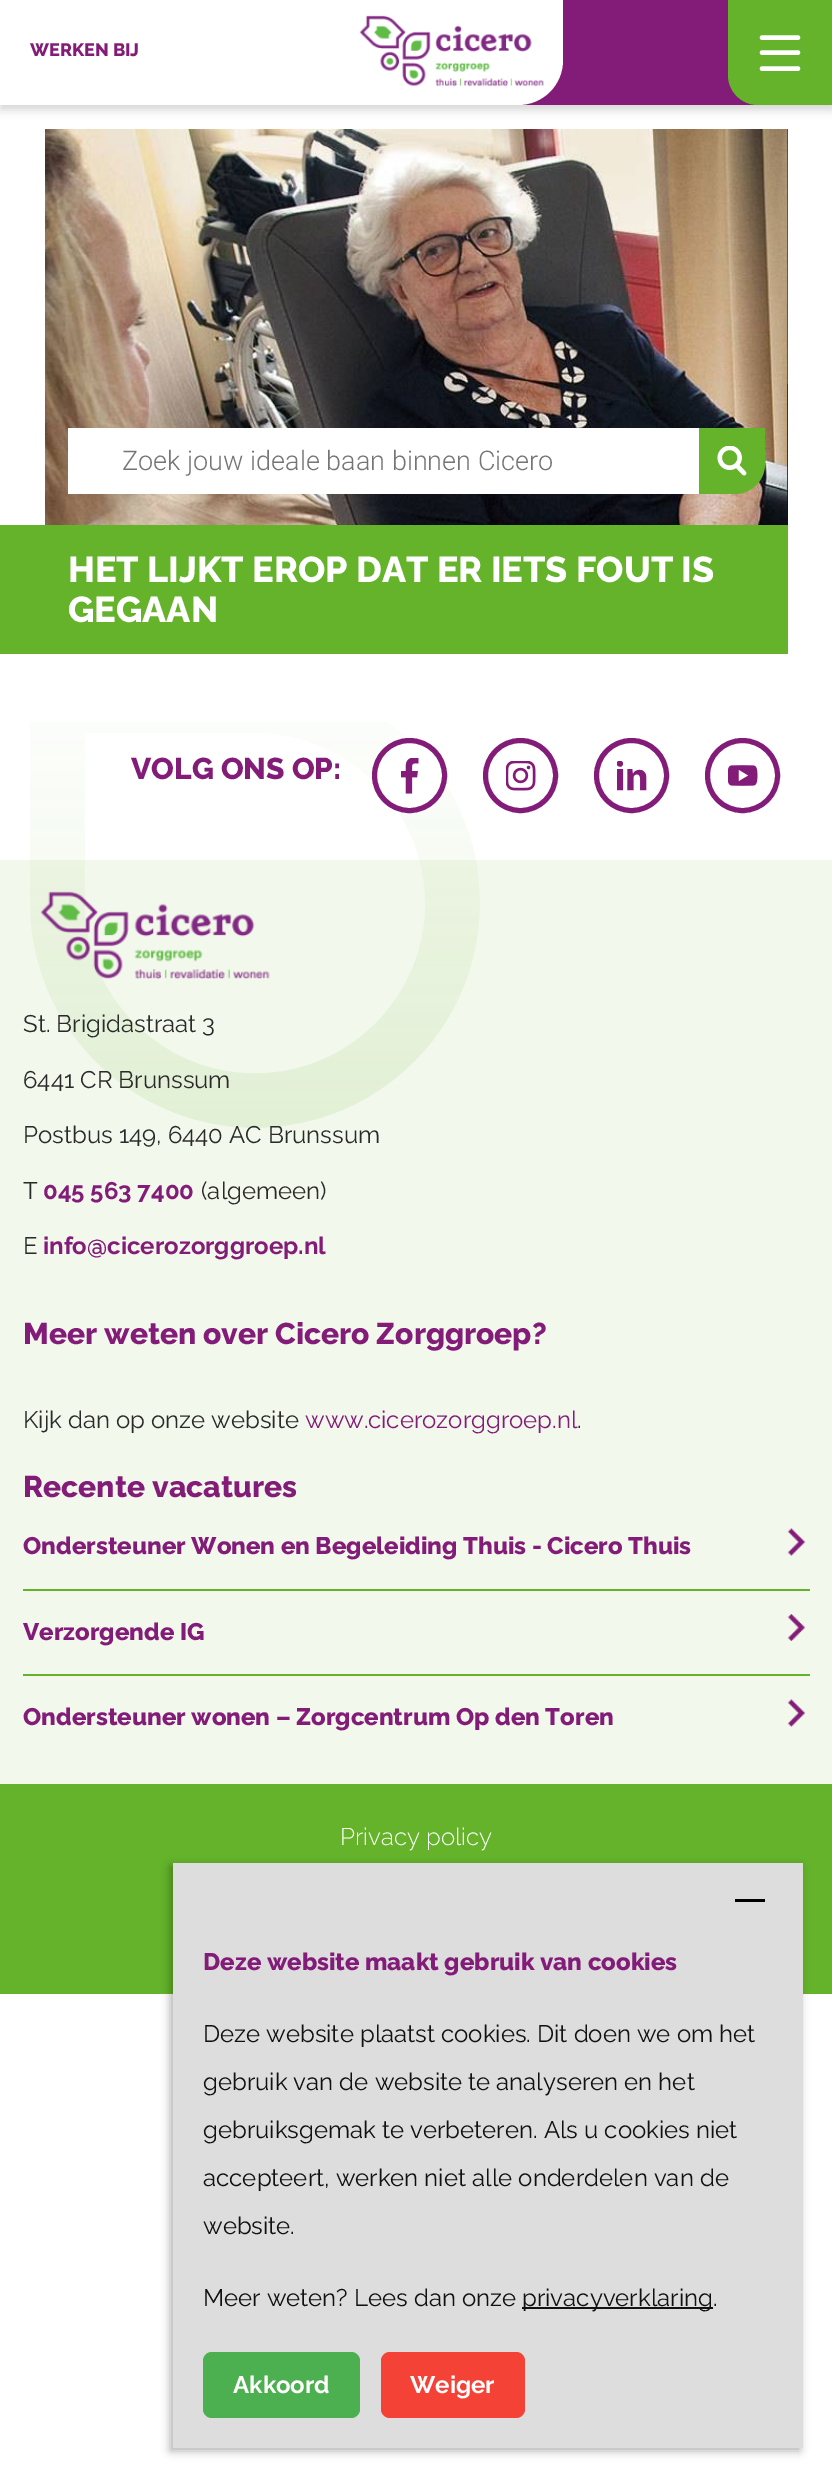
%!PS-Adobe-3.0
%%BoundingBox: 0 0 832 2478
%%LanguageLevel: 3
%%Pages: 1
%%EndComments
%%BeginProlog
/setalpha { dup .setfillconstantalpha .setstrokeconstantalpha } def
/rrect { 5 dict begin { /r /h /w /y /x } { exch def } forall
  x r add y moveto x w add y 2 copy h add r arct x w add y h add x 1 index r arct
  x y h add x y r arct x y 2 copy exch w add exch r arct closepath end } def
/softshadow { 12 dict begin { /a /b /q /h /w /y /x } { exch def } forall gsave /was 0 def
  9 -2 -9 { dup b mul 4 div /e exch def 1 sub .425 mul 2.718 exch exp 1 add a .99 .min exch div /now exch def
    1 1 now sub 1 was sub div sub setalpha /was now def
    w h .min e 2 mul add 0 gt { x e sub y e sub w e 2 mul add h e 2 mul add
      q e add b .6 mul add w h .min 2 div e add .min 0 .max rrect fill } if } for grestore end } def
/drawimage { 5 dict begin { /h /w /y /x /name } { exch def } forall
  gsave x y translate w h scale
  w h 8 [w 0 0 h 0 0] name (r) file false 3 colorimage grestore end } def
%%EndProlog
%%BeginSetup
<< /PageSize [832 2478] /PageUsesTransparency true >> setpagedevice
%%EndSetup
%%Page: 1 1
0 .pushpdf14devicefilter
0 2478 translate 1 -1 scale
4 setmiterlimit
1 setgray
0 0 832 2478 rectfill
0 setgray
0 5 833 105 0 4.5 0.16 softshadow
0.514 0.106 0.471 setrgbcolor
518 0 240 105 rectfill
1 setgray
newpath -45 0 moveto 563 0 lineto 563 60 lineto 563 85 543 105 518 105 curveto -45 105 lineto closepath fill
(images/1.raw) 359 15 185 72 drawimage
0.392 0.702 0.169 setrgbcolor
newpath 728 0 moveto 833 0 lineto 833 105 lineto 758 105 lineto 741.5 105 728 91.5 728 75 curveto closepath fill
1 setgray
4.5 setlinewidth
1 setlinecap
newpath 762 37.5 moveto 798 37.5 lineto 762 52.5 moveto 798 52.5 lineto 762 68.5 moveto 798 68.5 lineto stroke
0.067 setgray
787 129 1 396 rectfill
(images/2.raw) 45 129 743 396 drawimage
1 setgray
68 428 631 66 rectfill
0.392 0.702 0.169 setrgbcolor
newpath 699 428 moveto 765 428 lineto 765 464 lineto 765 480.5 751.5 494 735 494 curveto 699 494 lineto closepath fill
(images/3.raw) 717 446 30 30 drawimage
0 525 788 129 rectfill
0.953 0.973 0.925 setrgbcolor
0 860 832 924 rectfill
(images/4.raw) 30 722 450 406 drawimage
1 setgray
newpath 409.5 775.5 37.5 0 360 arc closepath fill
(images/5.raw) 401 758 18 36 drawimage
0.514 0.106 0.471 setrgbcolor
5 setlinewidth
0 setlinecap
newpath 409.5 775.5 35 0 360 arc closepath stroke
(images/6.raw) 506 761 30 30 drawimage
newpath 520.5 775.5 35 0 360 arc closepath stroke
(images/7.raw) 617 761 30 30 drawimage
newpath 631.5 775.5 35 0 360 arc closepath stroke
(images/8.raw) 728 765 30 21 drawimage
newpath 742.5 775.5 35 0 360 arc closepath stroke
(images/9.raw) 40 891 230 88 drawimage
(images/10.raw) 787 1528 19 28 drawimage
0.392 0.702 0.169 setrgbcolor
23 1589 787 2 rectfill
(images/11.raw) 787 1614 19 27 drawimage
23 1674 787 2 rectfill
(images/10.raw) 787 1699 19 28 drawimage
0 1784 832 210 rectfill
0 setgray
170 1866 630 585 0 4.5 0.3 softshadow
0.867 setgray
173 1863 630 585 rectfill
0 setgray
735 1899 30 3 rectfill
0.067 setgray
522 2307 191 2 rectfill
0.298 0.686 0.314 setrgbcolor
203 2352 157 66 9 rrect fill
0.957 0.263 0.212 setrgbcolor
381 2352 144 66 9 rrect fill
/Raleway-ExtraBold [18 0 0 -18 0 0] selectfont
0.514 0.106 0.471 setrgbcolor
30 56 moveto (WERKEN BIJ) show
/Roboto-Light [27 0 0 -27 0 0] selectfont
0.459 setgray
122 470 moveto (Zoek jouw ideale baan binnen Cicero) show
/Raleway-ExtraBold [36 0 0 -36 0 0] selectfont
1 setgray
68 582 moveto (HET LIJKT EROP DAT ER IETS FOUT IS) show
68 622 moveto (GEGAAN) show
/Raleway-ExtraBold [30 0 0 -30 0 0] selectfont
0.514 0.106 0.471 setrgbcolor
131 779 moveto (VOLG ONS OP:) show
/Raleway-Regular [24 0 0 -24 0 0] selectfont
0.165 setgray
23 1032 moveto (St. Brigidastraat 3) show
23 1088 moveto (6441 CR Brunssum) show
23 1143 moveto (Postbus 149, 6440 AC Brunssum) show
23 1199 moveto (T) show
/Raleway-Bold [24 0 0 -24 0 0] selectfont
0.514 0.106 0.471 setrgbcolor
43 1199 moveto (045 563 7400) show
/Raleway-Regular [24 0 0 -24 0 0] selectfont
0.165 setgray
201 1199 moveto (\(algemeen\)) show
23 1254 moveto (E) show
/Raleway-Bold [24 0 0 -24 0 0] selectfont
0.514 0.106 0.471 setrgbcolor
43 1254 moveto (info@cicerozorggroep.nl) show
/Raleway-ExtraBold [30 0 0 -30 0 0] selectfont
23 1344 moveto (Meer weten over Cicero Zorggroep?) show
/Raleway-Regular [24 0 0 -24 0 0] selectfont
0.165 setgray
23 1428 moveto (Kijk dan op onze website) show
0.514 0.106 0.471 setrgbcolor
305 1428 moveto (www.cicerozorggroep.nl) show
0.165 setgray
577 1428 moveto (.) show
/Raleway-ExtraBold [30 0 0 -30 0 0] selectfont
0.514 0.106 0.471 setrgbcolor
23 1497 moveto (Recente vacatures) show
/Raleway-ExtraBold [24 0 0 -24 0 0] selectfont
23 1554 moveto (Ondersteuner Wonen en Begeleiding Thuis - Cicero Thuis) show
23 1640 moveto (Verzorgende IG) show
23 1725 moveto (Ondersteuner wonen – Zorgcentrum Op den Toren) show
/Raleway-Light [24 0 0 -24 0 0] selectfont
1 setgray
340 1845 moveto (Privacy policy) show
/Raleway-ExtraBold [24 0 0 -24 0 0] selectfont
0.514 0.106 0.471 setrgbcolor
203 1970 moveto (Deze website maakt gebruik van cookies) show
/Raleway-Regular [24 0 0 -24 0 0] selectfont
0.067 setgray
203 2042 moveto (Deze website plaatst cookies. Dit doen we om het) show
203 2090 moveto (gebruik van de website te analyseren en het) show
203 2138 moveto (gebruiksgemak te verbeteren. Als u cookies niet) show
203 2186 moveto (accepteert, werken niet alle onderdelen van de) show
203 2234 moveto (website.) show
203 2306 moveto (Meer weten? Lees dan onze) show
522 2306 moveto (privacyverklaring.) show
/Raleway-Bold [24 0 0 -24 0 0] selectfont
1 setgray
233 2393 moveto (Akkoord) show
410 2393 moveto (Weiger) show
.poppdf14devicefilter showpage
%%EOF
